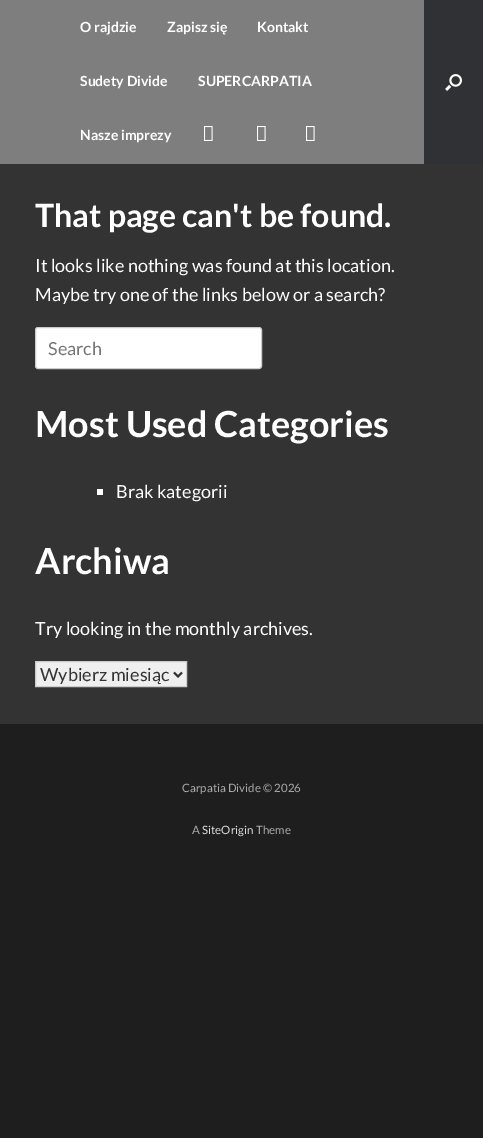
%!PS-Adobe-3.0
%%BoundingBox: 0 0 483 1138
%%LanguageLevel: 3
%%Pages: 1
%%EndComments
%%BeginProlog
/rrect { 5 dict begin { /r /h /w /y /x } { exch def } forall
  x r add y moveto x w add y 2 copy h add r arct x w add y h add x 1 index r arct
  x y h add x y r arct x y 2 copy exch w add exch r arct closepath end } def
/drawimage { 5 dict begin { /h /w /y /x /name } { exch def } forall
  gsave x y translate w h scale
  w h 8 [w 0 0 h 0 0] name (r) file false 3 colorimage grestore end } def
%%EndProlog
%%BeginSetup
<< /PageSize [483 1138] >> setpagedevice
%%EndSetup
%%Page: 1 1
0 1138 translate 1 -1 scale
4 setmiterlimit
0.118 setgray
0 0 483 1138 rectfill
0.494 setgray
0 0 424 164 rectfill
(images/1.raw) 204 126 9 15 drawimage
(images/1.raw) 257 126 9 15 drawimage
(images/1.raw) 306 126 9 15 drawimage
0.188 0.192 0.204 setrgbcolor
424 0 59 164 rectfill
(images/2.raw) 445 74 17 17 drawimage
0.2 setgray
0 164 483 560 rectfill
1 setgray
35.5 327.5 226 41 2.5 rrect gsave fill grestore
0.8 setgray
stroke
1 setgray
97 489 6 6 rectfill
0.937 setgray
newpath 35.5 661.5 moveto 186.5 661.5 lineto 186.5 686.5 lineto 35.5 686.5 lineto closepath gsave fill grestore
0.8 setgray
stroke
0.2 setgray
2 setlinewidth
newpath 174 672.5 moveto 178 676.5 lineto 182 672.5 lineto stroke
/Lato-Bold [14 0 0 -14 0 0] selectfont
1 setgray
80 32 moveto (O rajdzie) show
167 32 moveto (Zapisz się) show
257 32 moveto (Kontakt) show
80 86 moveto (Sudety Divide) show
198 86 moveto (SUPERCARPATIA) show
80 140 moveto (Nasze imprezy) show
/Lato-Bold [32 0 0 -32 0 0] selectfont
35 227 moveto (That page can't be found.) show
/Lato-Regular [18 0 0 -18 0 0] selectfont
35 272 moveto (It looks like nothing was found at this location.) show
35 301 moveto (Maybe try one of the links below or a search?) show
0.459 setgray
48 355 moveto (Search) show
/Lato-Bold [36 0 0 -36 0 0] selectfont
1 setgray
35 437 moveto (Most Used Categories) show
/Lato-Regular [18 0 0 -18 0 0] selectfont
116 498 moveto (Brak kategorii) show
/Lato-Bold [36 0 0 -36 0 0] selectfont
35 574 moveto (Archiwa) show
/Lato-Regular [18 0 0 -18 0 0] selectfont
35 635 moveto (Try looking in the monthly archives.) show
0.2 setgray
40 681 moveto (Wybierz miesiąc) show
/Lato-Regular [11.5 0 0 -11.5 0 0] selectfont
0.667 setgray
182 792 moveto (Carpatia Divide © 2026) show
192 834 moveto (A) show
0.867 setgray
202 834 moveto (SiteOrigin) show
0.667 setgray
256 834 moveto (Theme) show
showpage
%%EOF
